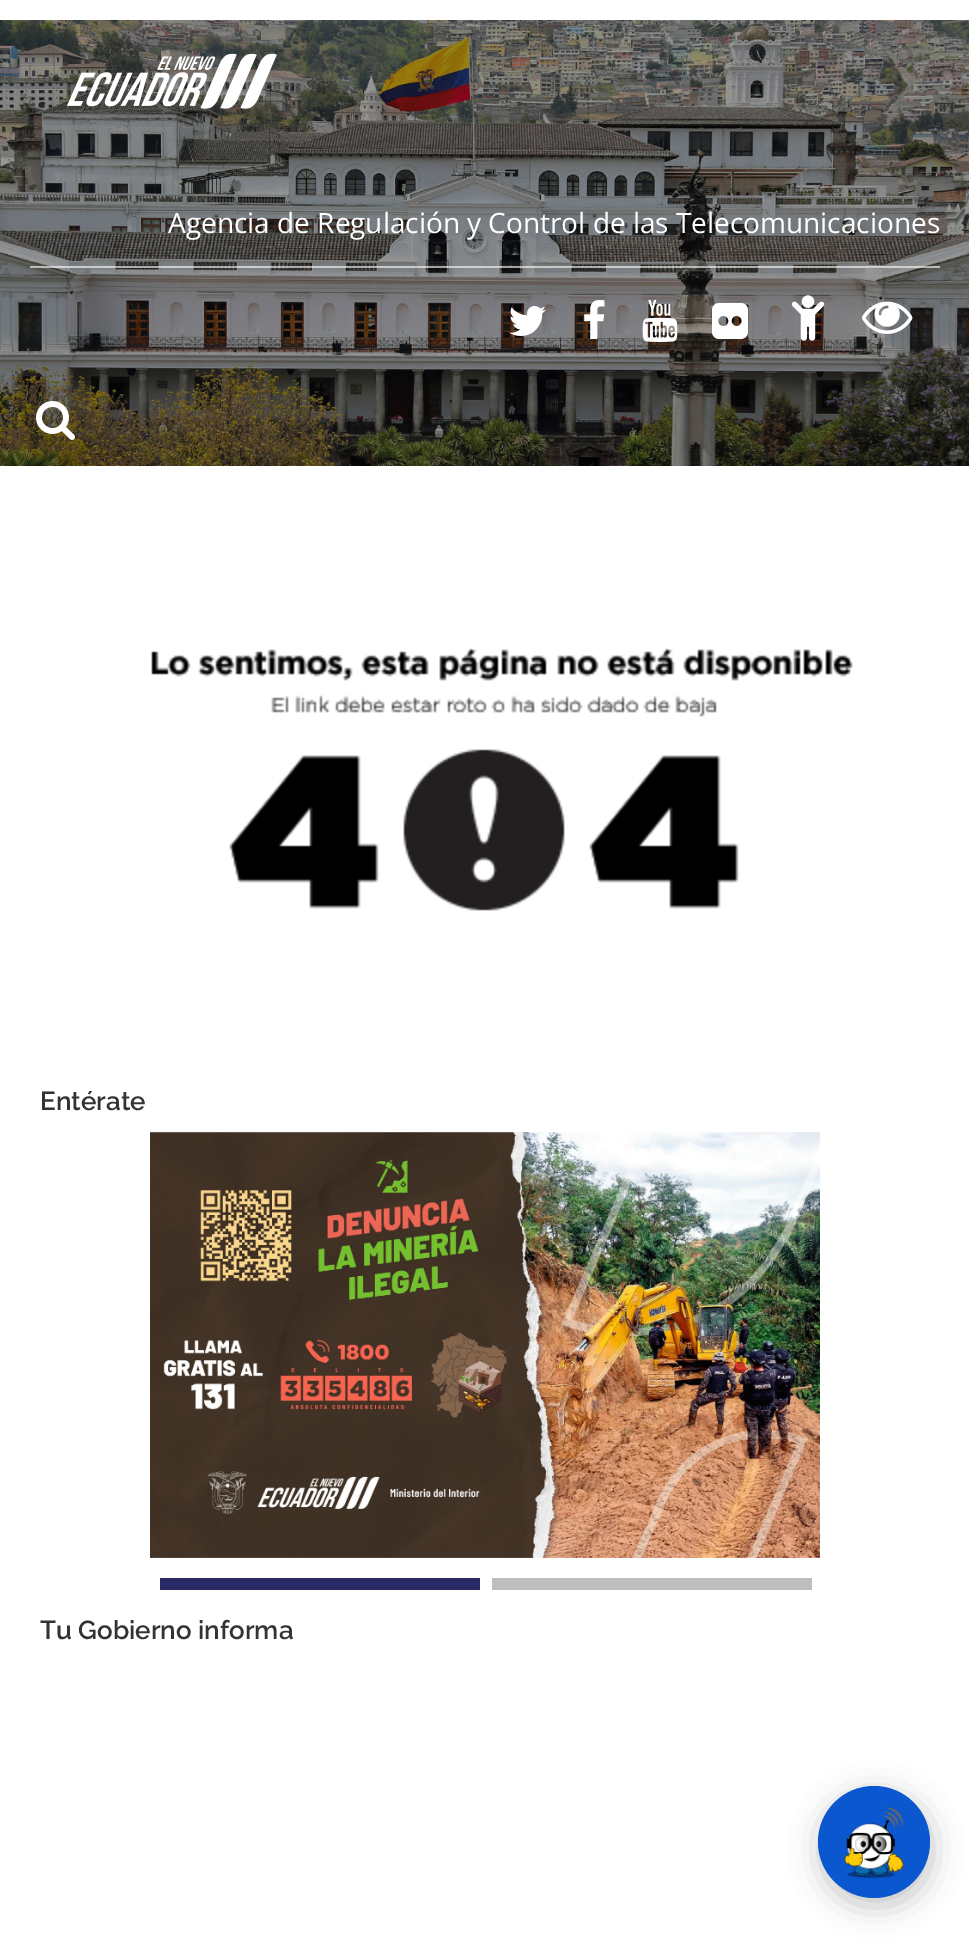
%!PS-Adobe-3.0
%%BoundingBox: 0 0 969 1938
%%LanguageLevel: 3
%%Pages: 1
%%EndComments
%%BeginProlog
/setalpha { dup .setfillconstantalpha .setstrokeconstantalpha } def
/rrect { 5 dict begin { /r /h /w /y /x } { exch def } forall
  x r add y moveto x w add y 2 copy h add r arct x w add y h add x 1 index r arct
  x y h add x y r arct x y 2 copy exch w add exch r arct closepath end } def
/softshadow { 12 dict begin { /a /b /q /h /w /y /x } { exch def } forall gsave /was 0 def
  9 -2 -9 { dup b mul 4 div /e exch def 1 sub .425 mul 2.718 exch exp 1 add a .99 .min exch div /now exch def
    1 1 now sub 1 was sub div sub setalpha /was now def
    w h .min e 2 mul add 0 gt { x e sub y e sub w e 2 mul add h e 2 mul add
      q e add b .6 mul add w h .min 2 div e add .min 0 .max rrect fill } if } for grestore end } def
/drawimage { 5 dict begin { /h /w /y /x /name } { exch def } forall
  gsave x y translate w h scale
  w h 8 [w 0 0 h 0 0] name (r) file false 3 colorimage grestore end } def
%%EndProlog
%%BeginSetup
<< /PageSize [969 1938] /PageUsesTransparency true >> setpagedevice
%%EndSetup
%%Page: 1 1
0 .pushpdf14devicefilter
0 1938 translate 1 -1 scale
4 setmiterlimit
1 setgray
0 0 969 1938 rectfill
(images/1.raw) 0 20 969 446 drawimage
(images/2.raw) 67 53 210 56 drawimage
0.6 setalpha
30 266 910 2 rectfill
1 setalpha
(images/3.raw) 509 306 37 30 drawimage
(images/4.raw) 584 300 21 39 drawimage
(images/5.raw) 642 300 36 42 drawimage
(images/6.raw) 712 303 36 36 drawimage
(images/7.raw) 791 295 34 46 drawimage
(images/8.raw) 862 301 51 33 drawimage
(images/9.raw) 36 401 39 39 drawimage
(images/10.raw) 151 647 702 264 drawimage
(images/11.raw) 150 1132 670 426 drawimage
0.153 0.161 0.396 setrgbcolor
160 1578 320 12 rectfill
0.745 setgray
492 1578 320 12 rectfill
0 setgray
820 1794 112 112 56 15 0.24 softshadow
0.043 0.341 0.816 setrgbcolor
newpath 874 1842 56 0 360 arc closepath fill
(images/12.raw) 844 1807 60 71 drawimage
/OpenSans-Regular [28 0 0 -28 0 0] selectfont
1 setgray
168 233 moveto (Agencia de Regulación y Control de las Telecomunicaciones) show
/Raleway-Thin [26 0 0 -26 0 0] selectfont
0.2 setgray
40 1110 moveto (Entérate) show
40 1639 moveto (Tu Gobierno informa) show
.poppdf14devicefilter showpage
%%EOF
